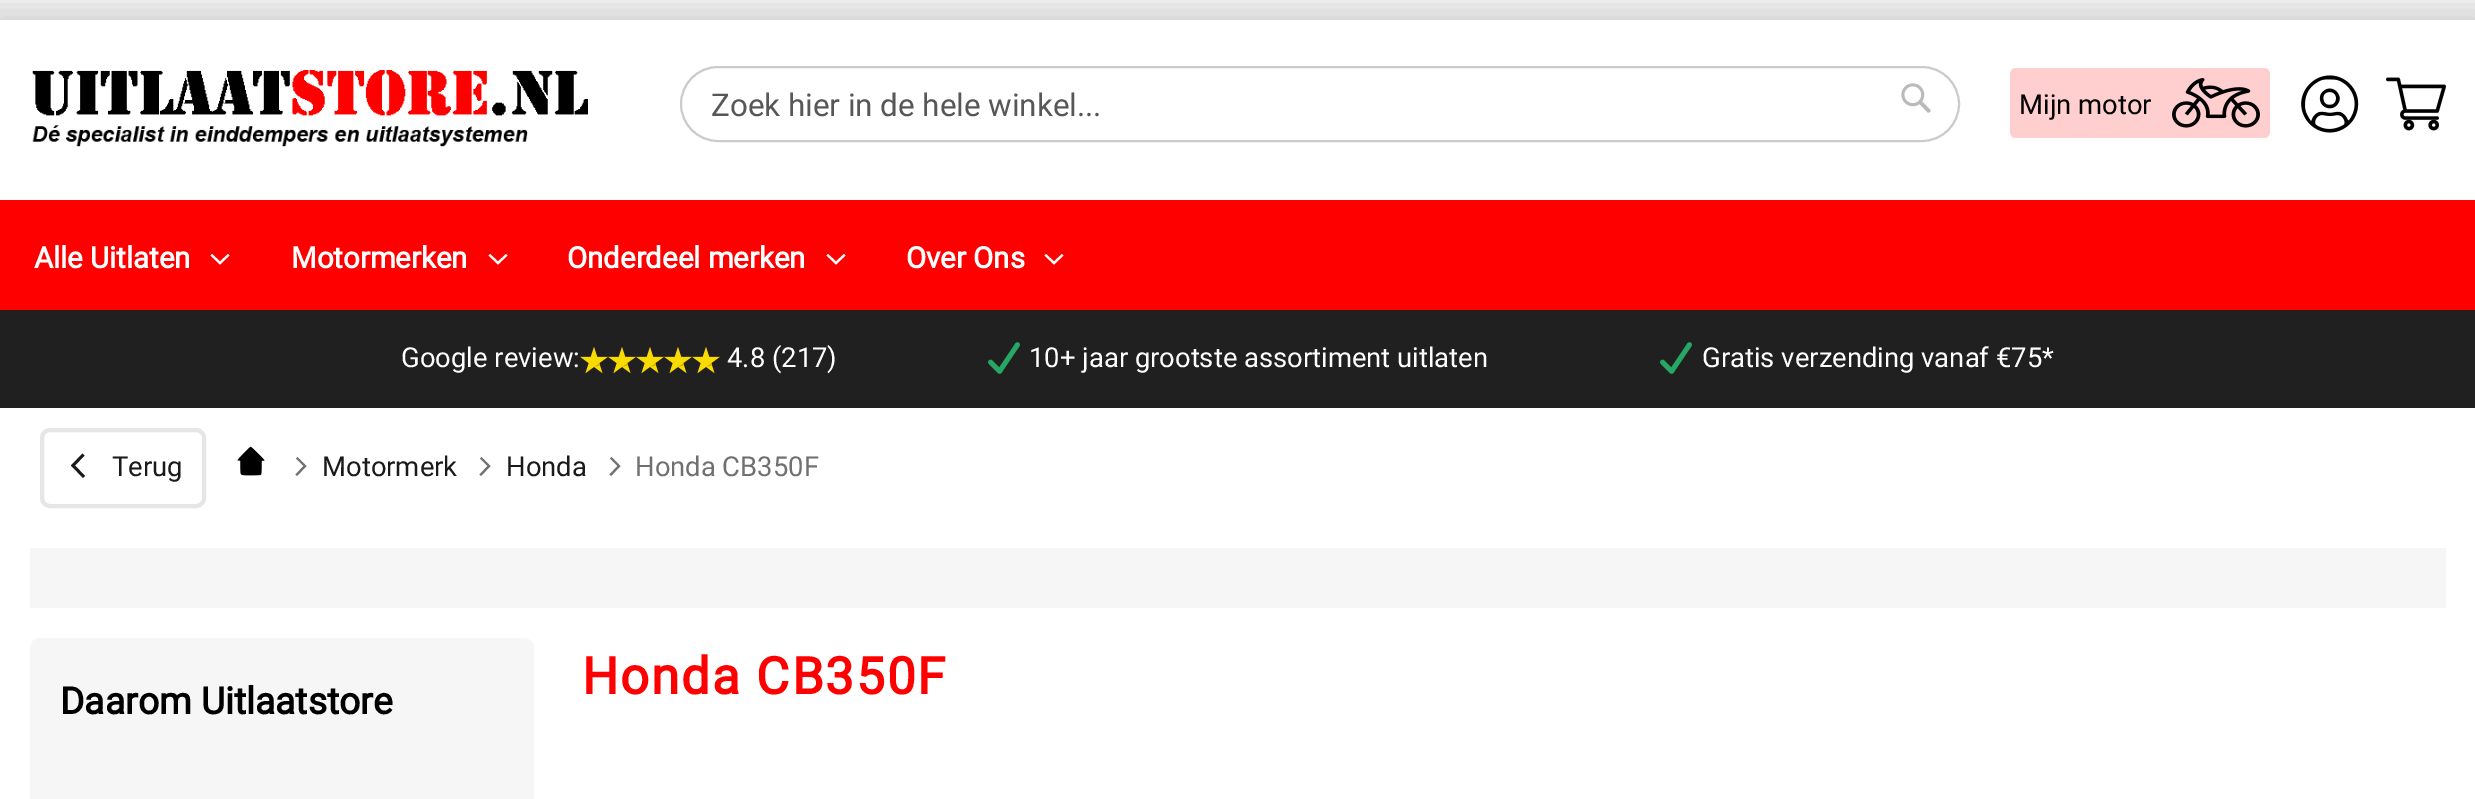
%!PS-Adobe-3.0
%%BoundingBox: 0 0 2475 799
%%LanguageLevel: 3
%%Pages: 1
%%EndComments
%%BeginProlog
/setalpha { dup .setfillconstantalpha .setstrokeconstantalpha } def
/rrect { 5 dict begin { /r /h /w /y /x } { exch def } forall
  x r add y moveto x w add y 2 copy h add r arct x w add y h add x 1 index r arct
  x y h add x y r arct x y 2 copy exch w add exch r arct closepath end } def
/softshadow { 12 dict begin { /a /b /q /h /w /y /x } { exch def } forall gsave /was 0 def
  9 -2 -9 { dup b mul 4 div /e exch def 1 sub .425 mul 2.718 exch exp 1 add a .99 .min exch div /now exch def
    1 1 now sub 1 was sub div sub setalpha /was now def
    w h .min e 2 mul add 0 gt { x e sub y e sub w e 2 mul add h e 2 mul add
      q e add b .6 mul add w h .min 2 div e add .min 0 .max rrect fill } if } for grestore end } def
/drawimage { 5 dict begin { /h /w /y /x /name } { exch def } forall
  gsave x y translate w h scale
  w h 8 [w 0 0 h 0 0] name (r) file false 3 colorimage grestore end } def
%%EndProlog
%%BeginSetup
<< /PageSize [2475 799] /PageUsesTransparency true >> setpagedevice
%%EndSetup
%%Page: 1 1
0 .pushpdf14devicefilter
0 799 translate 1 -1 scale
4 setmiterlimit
1 setgray
0 0 2475 799 rectfill
0.925 setgray
0 0 2475 20 rectfill
gsave
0 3 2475 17 rectclip
0 setgray
-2 20 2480 184 0 15 0.15 softshadow
grestore
(images/1.raw) 32 70 556 77 drawimage
0.808 0.792 0.792 setrgbcolor
2 setlinewidth
681 67 1278 74 37 rrect stroke
(images/2.raw) 1901 83 30 30 drawimage
1 0.812 0.812 setrgbcolor
2010 68 260 70 6 rrect fill
(images/3.raw) 2172 78 88 50 drawimage
(images/4.raw) 2301 75 58 58 drawimage
(images/5.raw) 2386 77 60 54 drawimage
1 0 0 setrgbcolor
0 200 2475 110 rectfill
1 setgray
newpath 220 261.5 moveto 212 254 lineto 210.5 255.5 lineto 220 264.5 lineto 229.5 255.5 lineto 228 254 lineto closepath fill
newpath 498 261.5 moveto 490 254 lineto 488.5 255.5 lineto 498 264.5 lineto 507.5 255.5 lineto 506 254 lineto closepath fill
newpath 836 261.5 moveto 828 254 lineto 826.5 255.5 lineto 836 264.5 lineto 845.5 255.5 lineto 844 254 lineto closepath fill
newpath 1054 261.5 moveto 1046 254 lineto 1044.5 255.5 lineto 1054 264.5 lineto 1063.5 255.5 lineto 1062 254 lineto closepath fill
0.129 0.125 0.125 setrgbcolor
0 310 2475 98 rectfill
(images/6.raw) 580 347 28 27 drawimage
(images/6.raw) 608 347 28 27 drawimage
(images/6.raw) 636 347 28 27 drawimage
(images/6.raw) 664 347 28 27 drawimage
(images/6.raw) 692 347 28 27 drawimage
(images/7.raw) 988 342 32 32 drawimage
(images/7.raw) 1660 342 32 32 drawimage
0.902 setgray
4 setlinewidth
42 430 162 76 8 rrect stroke
0.102 setgray
newpath 75 465.5 moveto 84.5 455.5 lineto 82.5 453.5 lineto 71 465.5 lineto 83 478 lineto 85 476 lineto closepath fill
(images/8.raw) 237 446 28 30 drawimage
0.439 setgray
newpath 306.5 466 moveto 297.5 457 lineto 296 458.5 lineto 303.5 466 lineto 295.5 474.5 lineto 297 476 lineto closepath fill
newpath 490.5 466 moveto 481.5 457 lineto 480 458.5 lineto 487.5 466 lineto 479.5 474.5 lineto 481 476 lineto closepath fill
newpath 620.5 466 moveto 611.5 457 lineto 610 458.5 lineto 617.5 466 lineto 609.5 474.5 lineto 611 476 lineto closepath fill
0.965 setgray
30 548 2416 60 rectfill
30 638 504 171 10 rrect fill
/Roboto-Regular [32 0 0 -32 0 0] selectfont
0.341 setgray
711 116 moveto (Zoek hier in de hele winkel...) show
/Roboto-Regular [28 0 0 -28 0 0] selectfont
0 setgray
2019 114 moveto (Mijn motor) show
/Roboto-Bold [30 0 0 -30 0 0] selectfont
1 setgray
34 268 moveto (Alle Uitlaten) show
291 268 moveto (Motormerken) show
567 268 moveto (Onderdeel merken) show
906 268 moveto (Over Ons) show
/Roboto-Regular [28 0 0 -28 0 0] selectfont
401 367 moveto (Google review:) show
727 367 moveto (4.8 \(217\)) show
1029 367 moveto (10+ jaar grootste assortiment uitlaten) show
1702 367 moveto (Gratis verzending vanaf €75*) show
0.102 setgray
112 476 moveto (Terug) show
322 476 moveto (Motormerk) show
506 476 moveto (Honda) show
0.439 setgray
635 476 moveto (Honda CB350F) show
/Roboto-Bold [52 0 0 -52 0 0] selectfont
1 0 0 setrgbcolor
582 694 moveto 2 0 (Honda CB350F) ashow
/Roboto-Bold [38 0 0 -38 0 0] selectfont
0 setgray
60 714 moveto (Daarom Uitlaatstore) show
.poppdf14devicefilter showpage
%%EOF
